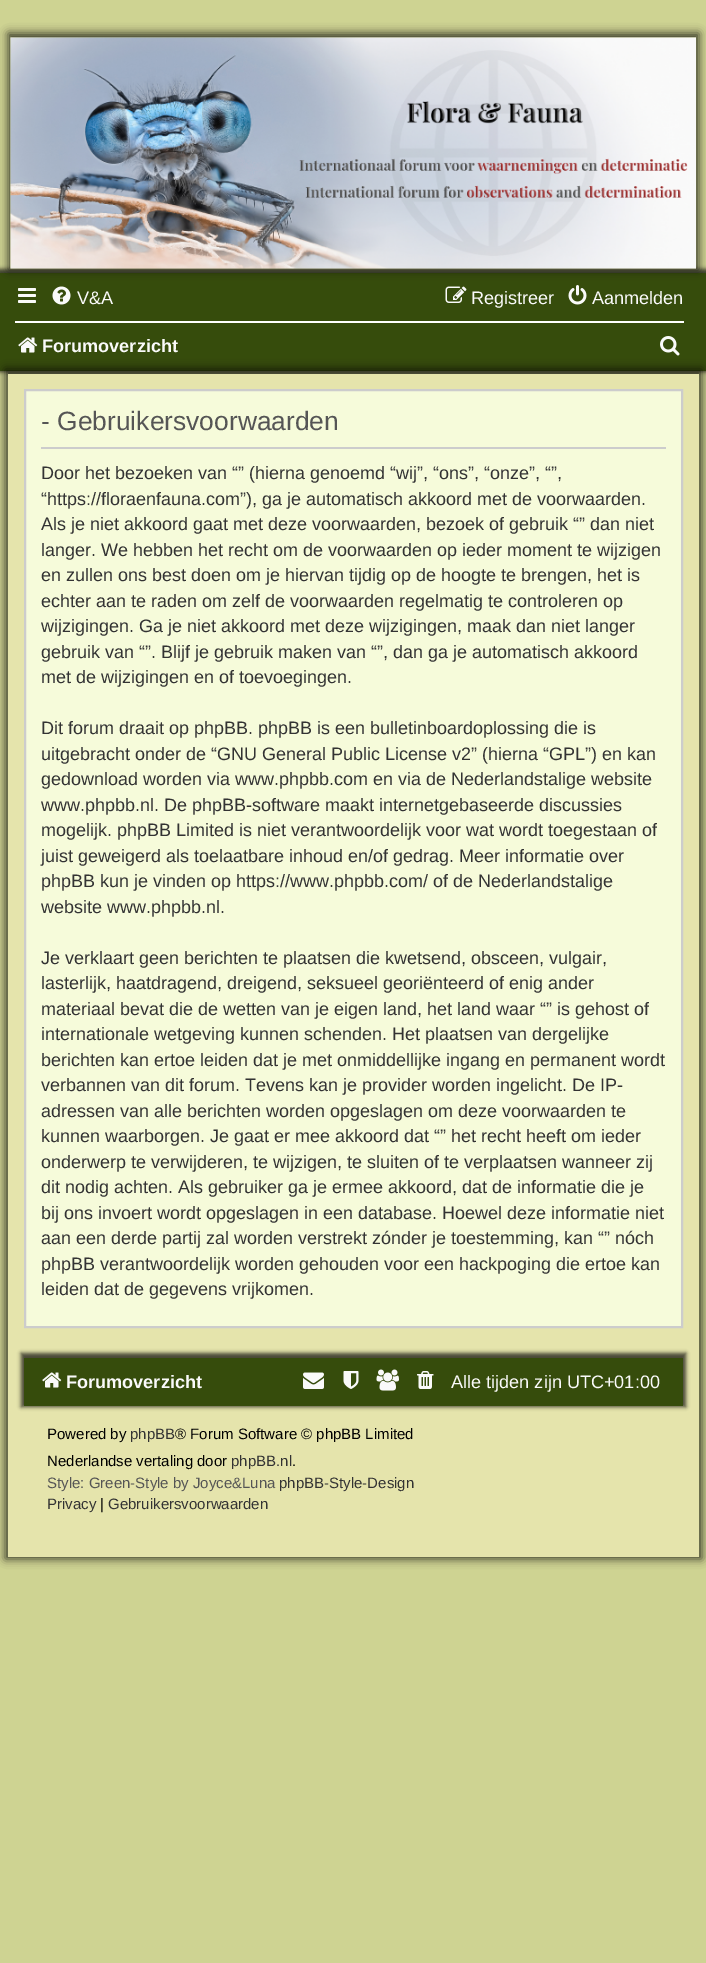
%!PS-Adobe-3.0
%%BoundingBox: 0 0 706 1963
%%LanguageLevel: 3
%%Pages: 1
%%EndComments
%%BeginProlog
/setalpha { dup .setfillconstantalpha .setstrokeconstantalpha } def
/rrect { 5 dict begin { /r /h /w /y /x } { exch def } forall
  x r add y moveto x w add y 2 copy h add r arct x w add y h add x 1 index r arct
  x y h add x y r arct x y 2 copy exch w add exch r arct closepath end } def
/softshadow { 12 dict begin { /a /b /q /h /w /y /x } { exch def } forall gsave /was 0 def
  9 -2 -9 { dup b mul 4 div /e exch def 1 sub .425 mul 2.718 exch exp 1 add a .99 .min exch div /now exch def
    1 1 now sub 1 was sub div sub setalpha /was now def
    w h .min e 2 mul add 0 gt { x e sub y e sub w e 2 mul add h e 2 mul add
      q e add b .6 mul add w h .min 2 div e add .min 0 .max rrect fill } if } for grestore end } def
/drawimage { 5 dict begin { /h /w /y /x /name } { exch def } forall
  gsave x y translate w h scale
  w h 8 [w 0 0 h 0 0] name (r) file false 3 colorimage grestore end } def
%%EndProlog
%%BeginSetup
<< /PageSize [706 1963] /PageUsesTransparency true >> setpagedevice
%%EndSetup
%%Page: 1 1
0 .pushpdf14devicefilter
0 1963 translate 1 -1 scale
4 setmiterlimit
0.808 0.827 0.573 setrgbcolor
0 0 706 1963 rectfill
0.008 setgray
-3 269 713 103 0 2 0.7 softshadow
0.212 0.298 0.047 setrgbcolor
0 273 706 98 rectfill
0.008 setgray
8 33 691 237 0 4.5 0.7 softshadow
(images/1.raw) 10 37 686 232 drawimage
(images/2.raw) 18 288 18 15 drawimage
(images/3.raw) 52 286 19 19 drawimage
(images/4.raw) 445 286 22 17 drawimage
(images/5.raw) 568 285 19 20 drawimage
1 setgray
15 321 669 2 rectfill
(images/6.raw) 18 337 20 16 drawimage
0.008 setgray
5 369 697 1190 0 4.5 0.7 softshadow
(images/7.raw) 660 336 20 20 drawimage
0.898 0.894 0.675 setrgbcolor
8 374 691 1183 rectfill
0.965 0.984 0.855 setrgbcolor
newpath 25 390 moveto 682 390 lineto 682 1327 lineto 25 1327 lineto closepath gsave fill grestore
0.8 setgray
2 setlinewidth
stroke
41 447 625 2 rectfill
0.008 setgray
21 1353 665 54 0 2 0.7 softshadow
0.212 0.298 0.047 setrgbcolor
24 1358 659 48 rectfill
(images/6.raw) 42 1372 20 16 drawimage
(images/8.raw) 303 1372 21 17 drawimage
(images/9.raw) 343 1371 16 18 drawimage
(images/10.raw) 376 1369 23 22 drawimage
(images/11.raw) 417 1371 17 18 drawimage
/LiberationSans-Regular [18.1 0 0 -18.1 0 0] selectfont
0.98 setgray
77 304 moveto (V&A) show
471 304 moveto (Registreer) show
592 304 moveto (Aanmelden) show
/LiberationSans-Bold [18.1 0 0 -18.1 0 0] selectfont
42 352 moveto (Forumoverzicht) show
/LiberationSans-Regular [26.4 0 0 -26.4 0 0] selectfont
0.333 setgray
41 430 moveto (- Gebruikersvoorwaarden) show
/LiberationSans-Regular [18 0 0 -18 0 0] selectfont
0.2 setgray
41 479 moveto (Door het bezoeken van “” \(hierna genoemd “wij”, “ons”, “onze”, “”,) show
41 505 moveto (“https://floraenfauna.com”\), ga je automatisch akkoord met de voorwaarden.) show
41 530 moveto (Als je niet akkoord gaat met deze voorwaarden, bezoek of gebruik “” dan niet) show
41 556 moveto (langer. We hebben het recht om de voorwaarden op ieder moment te wijzigen) show
41 581 moveto (en zullen ons best doen om je hiervan tijdig op de hoogte te brengen, het is) show
41 607 moveto (echter aan te raden om zelf de voorwaarden regelmatig te controleren op) show
41 632 moveto (wijzigingen. Ga je niet akkoord met deze wijzigingen, maak dan niet langer) show
41 658 moveto (gebruik van “”. Blijf je gebruik maken van “”, dan ga je automatisch akkoord) show
41 683 moveto (met de wijzigingen en of toevoegingen.) show
41 734 moveto (Dit forum draait op phpBB. phpBB is een bulletinboardoplossing die is) show
41 760 moveto (uitgebracht onder de “GNU General Public License v2” \(hierna “GPL”\) en kan) show
41 785 moveto (gedownload worden via www.phpbb.com en via de Nederlandstalige website) show
41 811 moveto (www.phpbb.nl. De phpBB-software maakt internetgebaseerde discussies) show
41 836 moveto (mogelijk. phpBB Limited is niet verantwoordelijk voor wat wordt toegestaan of) show
41 862 moveto (juist geweigerd als toelaatbare inhoud en/of gedrag. Meer informatie over) show
41 887 moveto (phpBB kun je vinden op https://www.phpbb.com/ of de Nederlandstalige) show
41 913 moveto (website www.phpbb.nl.) show
41 964 moveto (Je verklaart geen berichten te plaatsen die kwetsend, obsceen, vulgair,) show
41 989 moveto (lasterlijk, haatdragend, dreigend, seksueel georiënteerd of enig ander) show
41 1015 moveto (materiaal bevat die de wetten van je eigen land, het land waar “” is gehost of) show
41 1040 moveto (internationale wetgeving kunnen schenden. Het plaatsen van dergelijke) show
41 1066 moveto (berichten kan ertoe leiden dat je met onmiddellijke ingang en permanent wordt) show
41 1091 moveto (verbannen van dit forum. Tevens kan je provider worden ingelicht. De IP-) show
41 1117 moveto (adressen van alle berichten worden opgeslagen om deze voorwaarden te) show
41 1142 moveto (kunnen waarborgen. Je gaat er mee akkoord dat “” het recht heeft om ieder) show
41 1168 moveto (onderwerp te verwijderen, te wijzigen, te sluiten of te verplaatsen wanneer zij) show
41 1193 moveto (dit nodig achten. Als gebruiker ga je ermee akkoord, dat de informatie die je) show
41 1219 moveto (bij ons invoert wordt opgeslagen in een database. Hoewel deze informatie niet) show
41 1244 moveto (aan een derde partij zal worden verstrekt zónder je toestemming, kan “” nóch) show
41 1270 moveto (phpBB verantwoordelijk worden gehouden voor een hackpoging die ertoe kan) show
41 1295 moveto (leiden dat de gegevens vrijkomen.) show
/LiberationSans-Bold [18.1 0 0 -18.1 0 0] selectfont
0.98 setgray
66 1388 moveto (Forumoverzicht) show
/LiberationSans-Regular [18.1 0 0 -18.1 0 0] selectfont
451 1388 moveto (Alle tijden zijn UTC+01:00) show
/LiberationSans-Regular [15 0 0 -15 0 0] selectfont
0 setgray
47 1439 moveto (Powered by) show
0.2 setgray
130 1439 moveto (phpBB) show
0 setgray
175 1439 moveto (® Forum Software © phpBB Limited) show
47 1466 moveto (Nederlandse vertaling door) show
0.2 setgray
231 1466 moveto (phpBB.nl) show
0 setgray
292 1466 moveto (.) show
0.333 setgray
47 1488 moveto (Style: Green-Style by Joyce&Luna) show
0.2 setgray
279 1488 moveto (phpBB-Style-Design) show
47 1509 moveto (Privacy) show
0 setgray
100 1509 moveto (|) show
0.2 setgray
108 1509 moveto (Gebruikersvoorwaarden) show
.poppdf14devicefilter showpage
%%EOF
